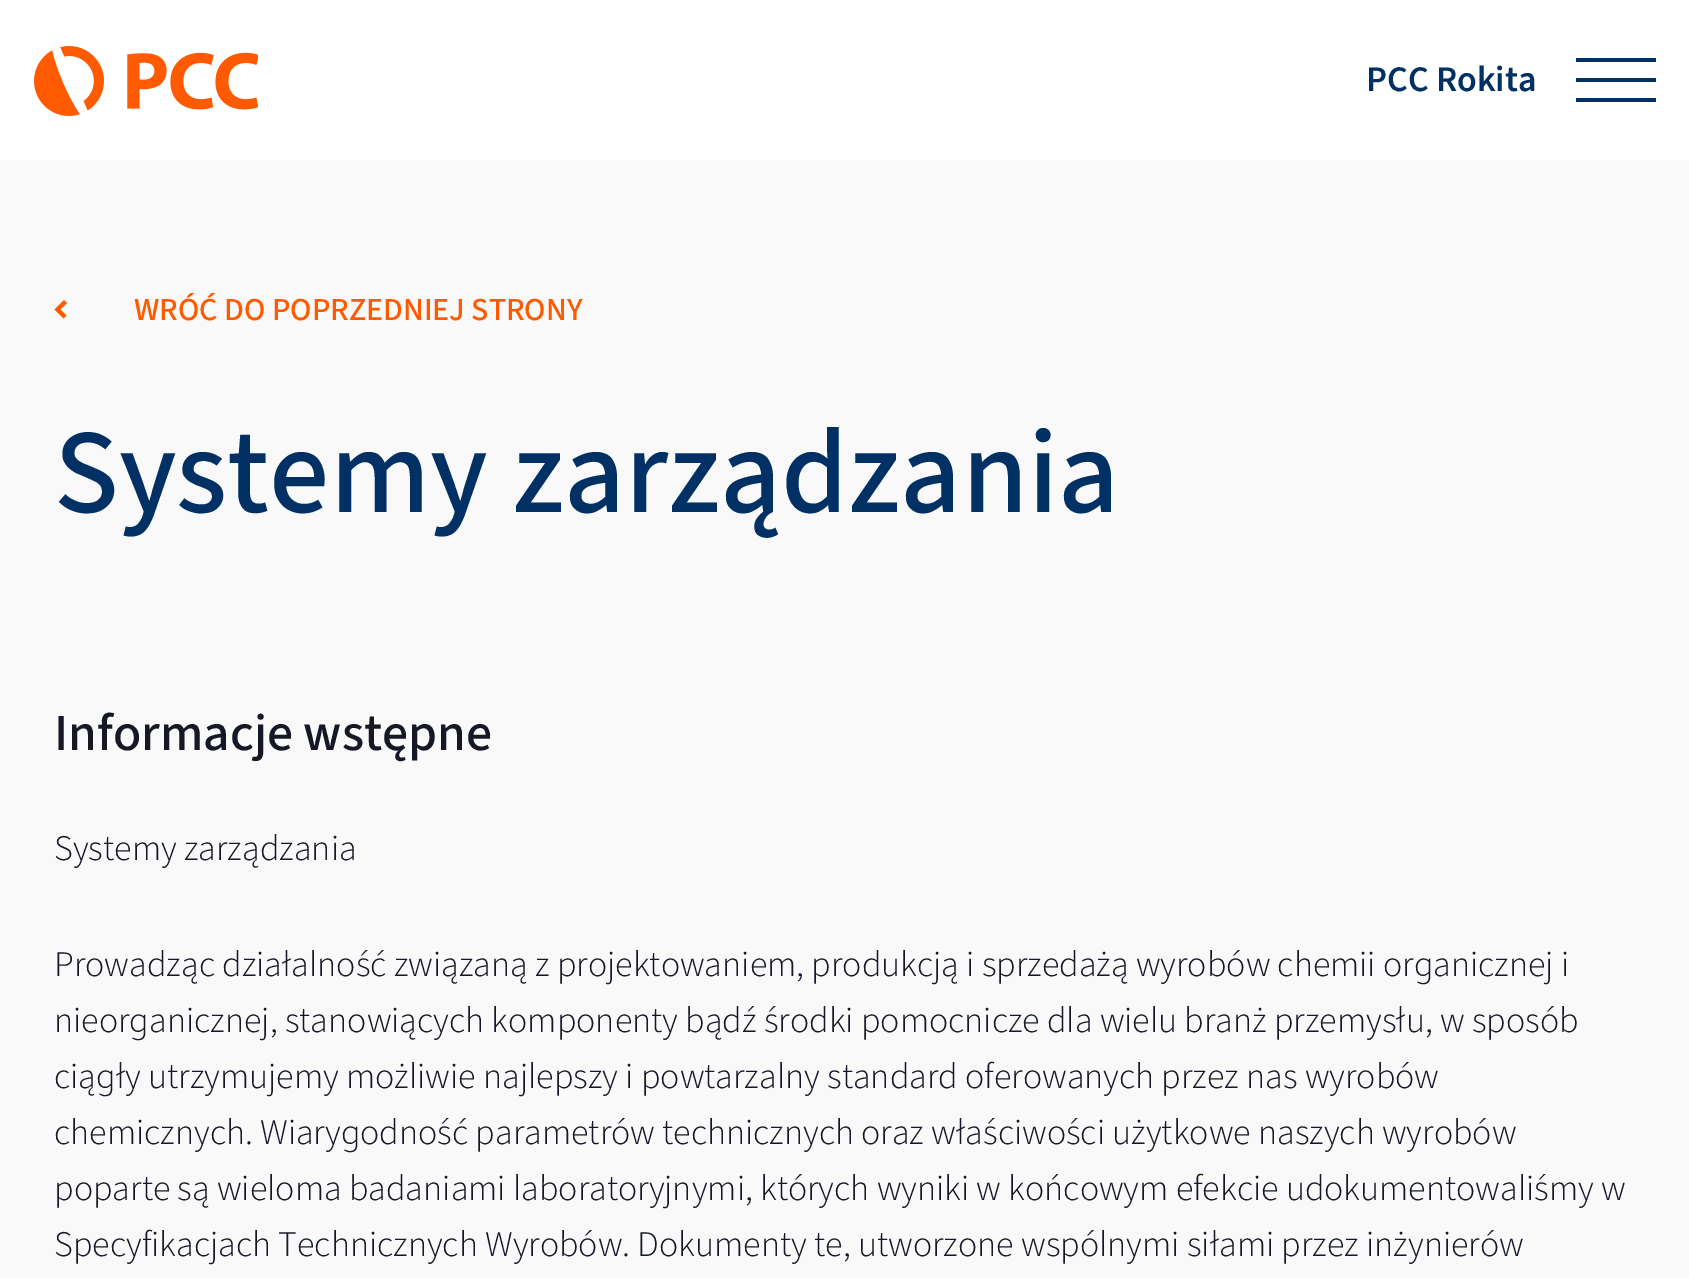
%!PS-Adobe-3.0
%%BoundingBox: 0 0 1689 1278
%%LanguageLevel: 3
%%Pages: 1
%%EndComments
%%BeginProlog
/drawimage { 5 dict begin { /h /w /y /x /name } { exch def } forall
  gsave x y translate w h scale
  w h 8 [w 0 0 h 0 0] name (r) file false 3 colorimage grestore end } def
%%EndProlog
%%BeginSetup
<< /PageSize [1689 1278] >> setpagedevice
%%EndSetup
%%Page: 1 1
0 1278 translate 1 -1 scale
4 setmiterlimit
1 setgray
0 0 1689 1278 rectfill
(images/1.raw) 34 46 224 70 drawimage
0 0.188 0.392 setrgbcolor
1576 78 80 4 rectfill
1576 58 80 4 rectfill
1576 98 80 4 rectfill
0.976 0.976 0.98 setrgbcolor
0 160 1689 1118 rectfill
1 0.353 0 setrgbcolor
4 setlinewidth
newpath 65.5 301.5 moveto 57.5 309.5 lineto 65 317 lineto stroke
/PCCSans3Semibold-SemiBold [36 0 0 -36 0 0] selectfont
0 0.188 0.392 setrgbcolor
1366 91 moveto (PCC Rokita) show
/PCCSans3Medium-Medium [32 0 0 -32 0 0] selectfont
1 0.353 0 setrgbcolor
134 320 moveto (WRÓĆ DO POPRZEDNIEJ STRONY) show
/PCCSans3Medium-Medium [120 0 0 -120 0 0] selectfont
0 0.188 0.392 setrgbcolor
54 512 moveto (Systemy zarządzania) show
/PCCSans3Medium-Medium [52 0 0 -52 0 0] selectfont
0.086 0.098 0.145 setrgbcolor
54 750 moveto (Informacje wstępne) show
/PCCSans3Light-Light [36 0 0 -36 0 0] selectfont
54 860 moveto (Systemy zarządzania) show
54 976 moveto (Prowadząc działalność związaną z projektowaniem, produkcją i sprzedażą wyrobów chemii organicznej i) show
54 1032 moveto (nieorganicznej, stanowiących komponenty bądź środki pomocnicze dla wielu branż przemysłu, w sposób) show
54 1088 moveto (ciągły utrzymujemy możliwie najlepszy i powtarzalny standard oferowanych przez nas wyrobów) show
54 1144 moveto (chemicznych. Wiarygodność parametrów technicznych oraz właściwości użytkowe naszych wyrobów) show
54 1200 moveto (poparte są wieloma badaniami laboratoryjnymi, których wyniki w końcowym efekcie udokumentowaliśmy w) show
54 1256 moveto (Specyfikacjach Technicznych Wyrobów. Dokumenty te, utworzone wspólnymi siłami przez inżynierów) show
showpage
%%EOF
